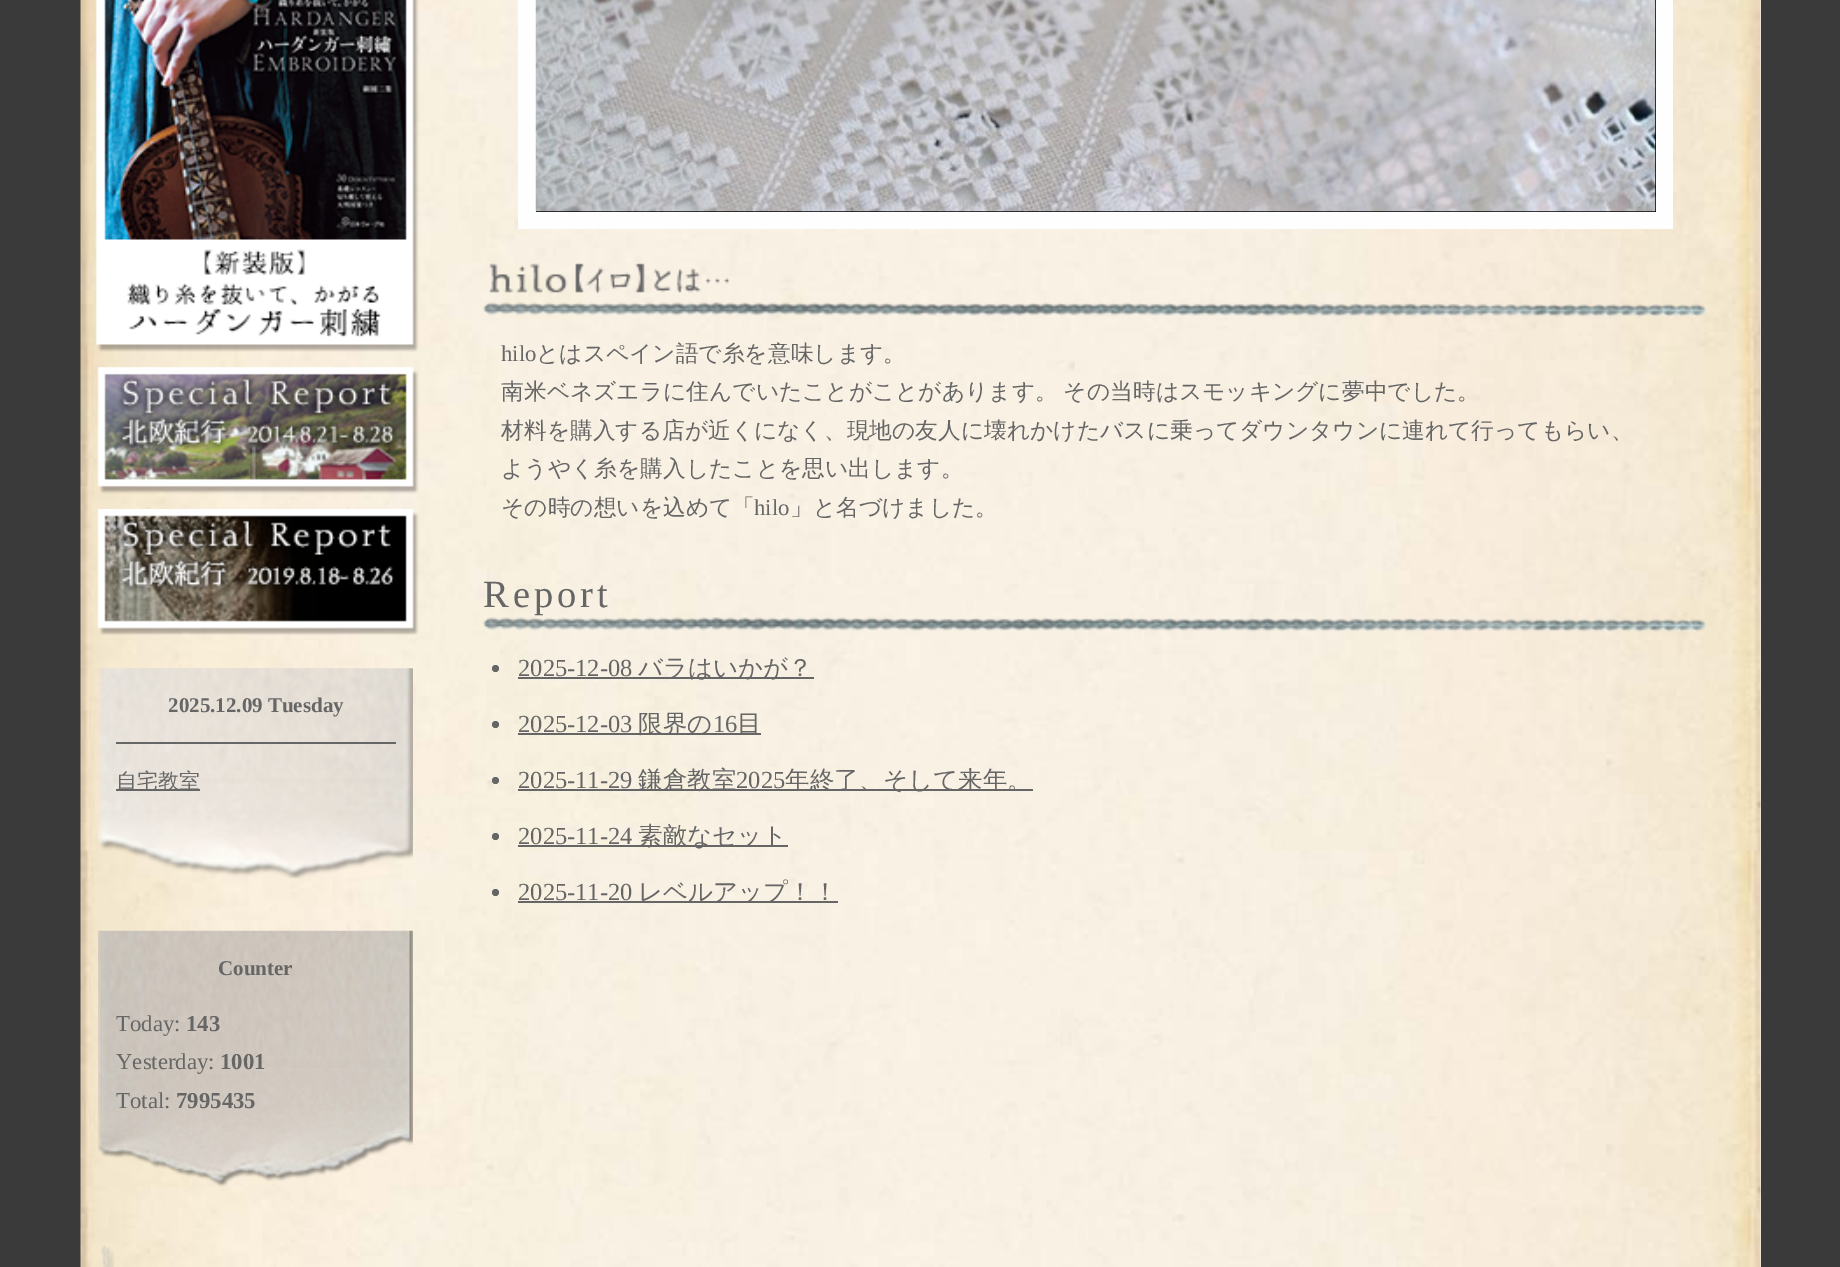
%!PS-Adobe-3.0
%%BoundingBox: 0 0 1840 1267
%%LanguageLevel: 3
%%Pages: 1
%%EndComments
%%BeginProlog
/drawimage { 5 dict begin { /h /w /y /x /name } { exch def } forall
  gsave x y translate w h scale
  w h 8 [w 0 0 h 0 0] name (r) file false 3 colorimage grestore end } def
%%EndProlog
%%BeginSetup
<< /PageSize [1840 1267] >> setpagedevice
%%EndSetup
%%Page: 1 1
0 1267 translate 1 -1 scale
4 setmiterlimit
0.227 setgray
0 0 1840 1267 rectfill
0.961 0.941 0.925 setrgbcolor
1760 0 1 1267 rectfill
(images/1.raw) 80 0 1681 1267 drawimage
(images/2.raw) 96 0 323 352 drawimage
(images/3.raw) 97 367 322 127 drawimage
(images/4.raw) 97 509 322 126 drawimage
0.996 setgray
518 0 1155 229 rectfill
0 setgray
536 0 1120 212 rectfill
(images/5.raw) 535 0 1121 212 drawimage
(images/6.raw) 483 302 1224 15 drawimage
(images/7.raw) 489 263 241 31 drawimage
(images/8.raw) 483 617 1224 15 drawimage
0.4 setgray
newpath 495.5 668.5 3.5 0 360 arc closepath fill
518 677 296 2 rectfill
newpath 495.5 724.5 3.5 0 360 arc closepath fill
518 733 243 2 rectfill
newpath 495.5 780.5 3.5 0 360 arc closepath fill
518 789 515 2 rectfill
newpath 495.5 836.5 3.5 0 360 arc closepath fill
518 845 270 2 rectfill
newpath 495.5 892.5 3.5 0 360 arc closepath fill
518 901 320 2 rectfill
(images/9.raw) 98 668 315 211 drawimage
116 742 280 2 rectfill
116 789 84 2 rectfill
(images/10.raw) 98 930 315 257 drawimage
(images/11.raw) 101 1245 13 22 drawimage
/LiberationSerif-Regular [22.75 0 0 -22.75 0 0] selectfont
501 361 moveto (hilo) show
/WenQuanYiZenHei-Medium [22.75 0 0 -22.75 0 0] selectfont
536 361 moveto (とはスペイン語で糸を意味します。) show
501 399 moveto -1 0 32 (南米ベネズエラに住んでいたことがことがあります。 その当時はスモッキングに夢中でした。) widthshow
501 438 moveto (材料を購入する店が近くになく、現地の友人に壊れかけたバスに乗ってダウンタウンに連れて行ってもらい、) show
501 476 moveto (ようやく糸を購入したことを思い出します。) show
501 515 moveto (その時の想いを込めて「) show
/LiberationSerif-Regular [22.75 0 0 -22.75 0 0] selectfont
754 515 moveto (hilo) show
/WenQuanYiZenHei-Medium [22.75 0 0 -22.75 0 0] selectfont
790 515 moveto (」と名づけました。) show
/LiberationSerif-Regular [38.5 0 0 -38.5 0 0] selectfont
483 607 moveto 4 0 (Report) ashow
/LiberationSerif-Regular [24.5 0 0 -24.5 0 0] selectfont
518 676 moveto (2025-12-08) show
/WenQuanYiZenHei-Medium [24.5 0 0 -24.5 0 0] selectfont
638 676 moveto (バラはいかが？) show
/LiberationSerif-Regular [24.5 0 0 -24.5 0 0] selectfont
518 732 moveto (2025-12-03) show
/WenQuanYiZenHei-Medium [24.5 0 0 -24.5 0 0] selectfont
638 732 moveto (限界の) show
/LiberationSerif-Regular [24.5 0 0 -24.5 0 0] selectfont
713 732 moveto (16) show
/WenQuanYiZenHei-Medium [24.5 0 0 -24.5 0 0] selectfont
737 732 moveto (目) show
/LiberationSerif-Regular [24.5 0 0 -24.5 0 0] selectfont
518 788 moveto (2025-11-29) show
/WenQuanYiZenHei-Medium [24.5 0 0 -24.5 0 0] selectfont
638 788 moveto (鎌倉教室) show
/LiberationSerif-Regular [24.5 0 0 -24.5 0 0] selectfont
736 788 moveto (2025) show
/WenQuanYiZenHei-Medium [24.5 0 0 -24.5 0 0] selectfont
785 788 moveto (年終了、そして来年。) show
/LiberationSerif-Regular [24.5 0 0 -24.5 0 0] selectfont
518 844 moveto (2025-11-24) show
/WenQuanYiZenHei-Medium [24.5 0 0 -24.5 0 0] selectfont
638 844 moveto (素敵なセット) show
/LiberationSerif-Regular [24.5 0 0 -24.5 0 0] selectfont
518 900 moveto (2025-11-20) show
/WenQuanYiZenHei-Medium [24.5 0 0 -24.5 0 0] selectfont
638 900 moveto (レベルアップ！！) show
/LiberationSerif-Bold [21 0 0 -21 0 0] selectfont
168 712 moveto (2025.12.09 Tuesday) show
/WenQuanYiZenHei-Medium [21 0 0 -21 0 0] selectfont
116 788 moveto (自宅教室) show
/LiberationSerif-Bold [21 0 0 -21 0 0] selectfont
218 975 moveto (Counter) show
/LiberationSerif-Regular [22.75 0 0 -22.75 0 0] selectfont
116 1031 moveto (Today:) show
/LiberationSerif-Bold [22.75 0 0 -22.75 0 0] selectfont
186 1031 moveto (143) show
/LiberationSerif-Regular [22.75 0 0 -22.75 0 0] selectfont
116 1069 moveto (Yesterday:) show
/LiberationSerif-Bold [22.75 0 0 -22.75 0 0] selectfont
220 1069 moveto (1001) show
/LiberationSerif-Regular [22.75 0 0 -22.75 0 0] selectfont
116 1108 moveto (Total:) show
/LiberationSerif-Bold [22.75 0 0 -22.75 0 0] selectfont
176 1108 moveto (7995435) show
showpage
%%EOF
